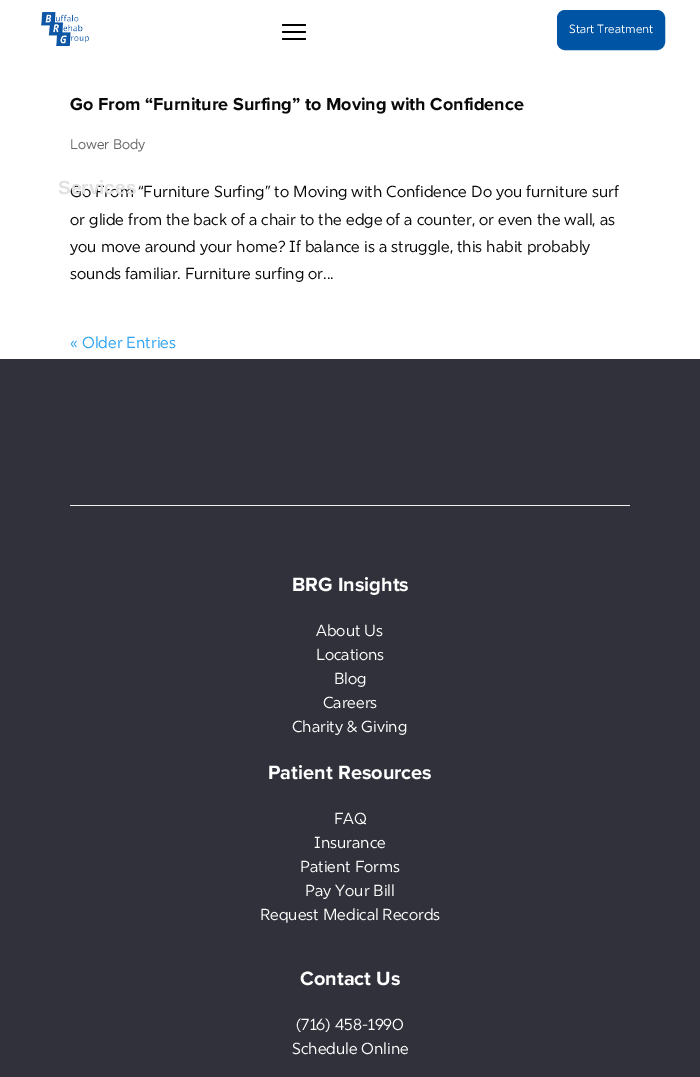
%!PS-Adobe-3.0
%%BoundingBox: 0 0 700 1077
%%LanguageLevel: 3
%%Pages: 1
%%EndComments
%%BeginProlog
/rrect { 5 dict begin { /r /h /w /y /x } { exch def } forall
  x r add y moveto x w add y 2 copy h add r arct x w add y h add x 1 index r arct
  x y h add x y r arct x y 2 copy exch w add exch r arct closepath end } def
/drawimage { 5 dict begin { /h /w /y /x /name } { exch def } forall
  gsave x y translate w h scale
  w h 8 [w 0 0 h 0 0] name (r) file false 3 colorimage grestore end } def
%%EndProlog
%%BeginSetup
<< /PageSize [700 1077] >> setpagedevice
%%EndSetup
%%Page: 1 1
0 1077 translate 1 -1 scale
4 setmiterlimit
1 setgray
0 0 700 1077 rectfill
(images/1.raw) 41 12 48 35 drawimage
0 0.329 0.643 setrgbcolor
558 11 106 38 7 rrect gsave fill grestore
2 setlinewidth
stroke
0 setgray
282 31 24 2 1 rrect fill
282 24 24 2 1 rrect fill
282 38 24 2 1 rrect fill
0.188 0.192 0.227 setrgbcolor
0 359 700 718 rectfill
0.945 setgray
70 505 560 1 rectfill
/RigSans-Regular [12 0 0 -12 0 0] selectfont
1 setgray
569 33 moveto (Start Treatment) show
/ProximaNova-Bold [18 0 0 -18 0 0] selectfont
0.039 setgray
70 110 moveto (Go From “Furniture Surfing” to Moving with Confidence) show
/RigSans-Regular [14 0 0 -14 0 0] selectfont
0.4 setgray
70 149 moveto (Lower Body) show
/RigSans-Regular [16 0 0 -16 0 0] selectfont
0.039 setgray
70 197 moveto (Go From “Furniture Surfing” to Moving with Confidence Do you furniture surf) show
/LiberationSans-Bold [19 0 0 -19 0 0] selectfont
0.882 setgray
58 194 moveto (Services) show
/RigSans-Regular [16 0 0 -16 0 0] selectfont
0.039 setgray
70 225 moveto (or glide from the back of a chair to the edge of a counter, or even the wall, as) show
70 252 moveto (you move around your home? If balance is a struggle, this habit probably) show
70 279 moveto (sounds familiar. Furniture surfing or...) show
0.18 0.639 0.949 setrgbcolor
70 348 moveto (« Older Entries) show
/ProximaNova-Bold [20 0 0 -20 0 0] selectfont
1 setgray
292 591 moveto (BRG Insights) show
/RigSans-Regular [16 0 0 -16 0 0] selectfont
316 636 moveto (About Us) show
316 660 moveto (Locations) show
334 684 moveto (Blog) show
323 708 moveto (Careers) show
292 732 moveto (Charity & Giving) show
/ProximaNova-Bold [20 0 0 -20 0 0] selectfont
268 779 moveto (Patient Resources) show
/RigSans-Regular [16 0 0 -16 0 0] selectfont
334 824 moveto (FAQ) show
314 848 moveto (Insurance) show
300 872 moveto (Patient Forms) show
305 896 moveto (Pay Your Bill) show
260 920 moveto (Request Medical Records) show
/ProximaNova-Bold [20 0 0 -20 0 0] selectfont
300 985 moveto (Contact Us) show
/RigSans-Regular [16 0 0 -16 0 0] selectfont
296 1030 moveto (\(716\) 458-1990) show
292 1054 moveto (Schedule Online) show
showpage
%%EOF
